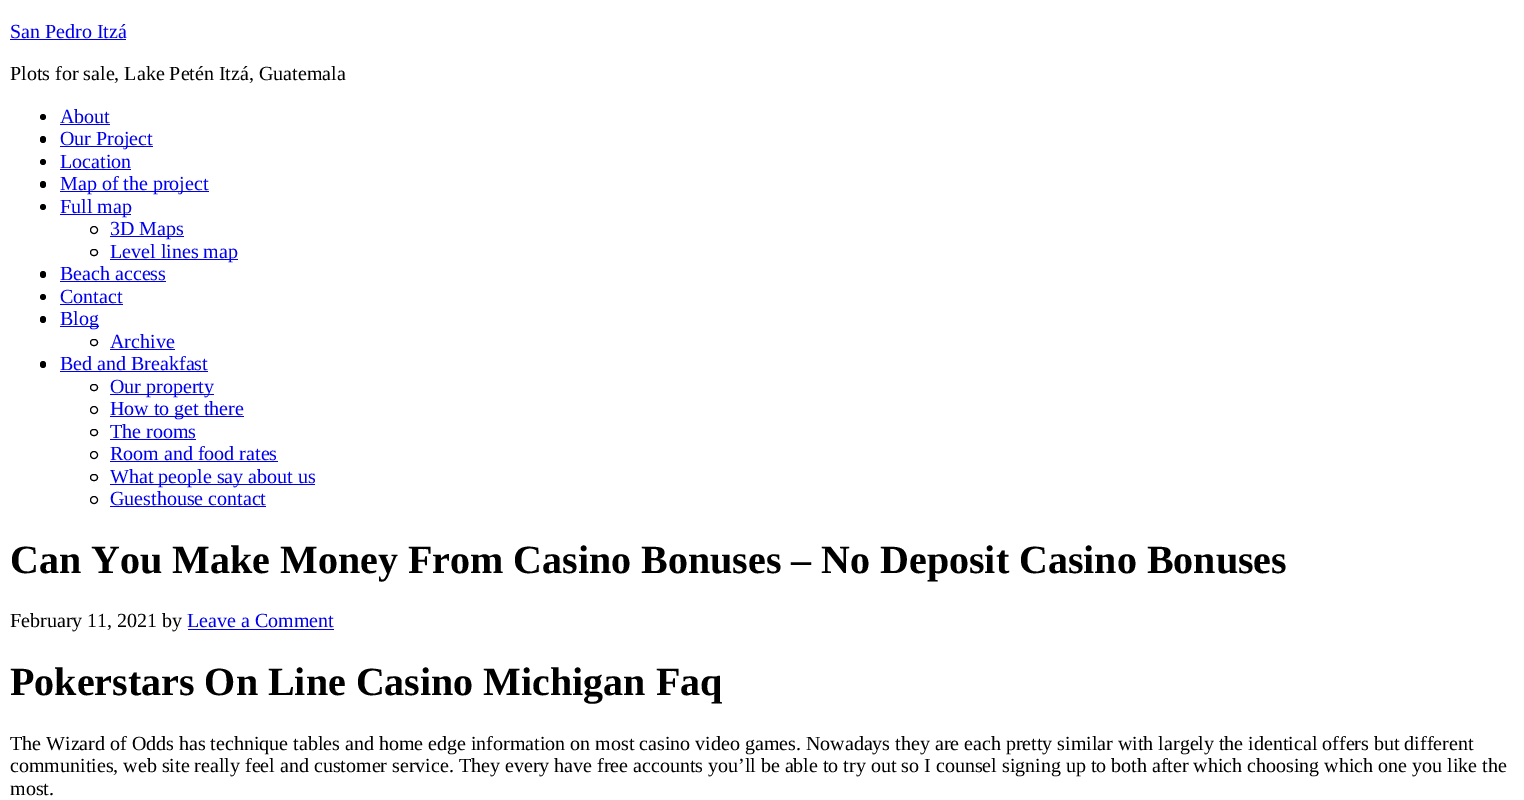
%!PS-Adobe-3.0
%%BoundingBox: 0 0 1524 800
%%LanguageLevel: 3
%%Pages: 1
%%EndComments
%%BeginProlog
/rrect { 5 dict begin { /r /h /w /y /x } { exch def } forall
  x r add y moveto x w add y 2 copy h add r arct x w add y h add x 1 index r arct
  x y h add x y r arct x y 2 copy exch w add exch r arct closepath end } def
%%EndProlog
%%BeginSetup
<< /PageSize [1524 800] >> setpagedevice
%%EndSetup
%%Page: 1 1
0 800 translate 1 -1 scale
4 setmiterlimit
1 setgray
0 0 1524 800 rectfill
0 0 0.933 setrgbcolor
10 39 116 1 rectfill
0 setgray
newpath 43 117 3 0 360 arc closepath fill
0 0 0.933 setrgbcolor
60 124 50 1 rectfill
0 setgray
40 136 6 7 3 rrect fill
0 0 0.933 setrgbcolor
60 146 93 1 rectfill
0 setgray
newpath 43 162 3 0 360 arc closepath fill
0 0 0.933 setrgbcolor
60 169 71 1 rectfill
0 setgray
40 181 6 7 3 rrect fill
0 0 0.933 setrgbcolor
60 191 149 1 rectfill
0 setgray
newpath 43 207 3 0 360 arc closepath fill
0 0 0.933 setrgbcolor
60 214 71 1 rectfill
0 setgray
newpath 94 230 3.5 0 360 arc closepath stroke
0 0 0.933 setrgbcolor
110 236 74 1 rectfill
0 setgray
90.5 249.5 7 6 3 rrect stroke
0 0 0.933 setrgbcolor
110 259 128 1 rectfill
0 setgray
40 271 6 7 3 rrect fill
0 0 0.933 setrgbcolor
60 281 106 1 rectfill
0 setgray
newpath 43 297 3 0 360 arc closepath fill
0 0 0.933 setrgbcolor
60 304 63 1 rectfill
0 setgray
40 316 6 7 3 rrect fill
0 0 0.933 setrgbcolor
60 326 39 1 rectfill
0 setgray
90.5 339.5 7 6 3 rrect stroke
0 0 0.933 setrgbcolor
110 349 65 1 rectfill
0 setgray
40 361 6 7 3 rrect fill
0 0 0.933 setrgbcolor
60 371 148 1 rectfill
0 setgray
90.5 384.5 7 6 3 rrect stroke
0 0 0.933 setrgbcolor
110 394 104 1 rectfill
0 setgray
newpath 94 410 3.5 0 360 arc closepath stroke
0 0 0.933 setrgbcolor
110 416 134 1 rectfill
0 setgray
90.5 429.5 7 6 3 rrect stroke
0 0 0.933 setrgbcolor
110 439 86 1 rectfill
0 setgray
newpath 94 455 3.5 0 360 arc closepath stroke
0 0 0.933 setrgbcolor
110 461 168 1 rectfill
0 setgray
90.5 474.5 7 6 3 rrect stroke
0 0 0.933 setrgbcolor
110 484 205 1 rectfill
0 setgray
newpath 94 500 3.5 0 360 arc closepath stroke
0 0 0.933 setrgbcolor
110 506 156 1 rectfill
188 629 146 1 rectfill
/LiberationSerif-Regular [20 0 0 -20 0 0] selectfont
10 38 moveto (San Pedro Itzá) show
0 setgray
10 80 moveto (Plots for sale, Lake Petén Itzá, Guatemala) show
0 0 0.933 setrgbcolor
60 123 moveto (About) show
60 145 moveto (Our Project) show
60 168 moveto (Location) show
60 190 moveto (Map of the project) show
60 213 moveto (Full map) show
110 235 moveto (3D Maps) show
110 258 moveto (Level lines map) show
60 280 moveto (Beach access) show
60 303 moveto (Contact) show
60 325 moveto (Blog) show
110 348 moveto (Archive) show
60 370 moveto (Bed and Breakfast) show
110 393 moveto (Our property) show
110 415 moveto (How to get there) show
110 438 moveto (The rooms) show
110 460 moveto (Room and food rates) show
110 483 moveto (What people say about us) show
110 505 moveto (Guesthouse contact) show
/LiberationSerif-Bold [40 0 0 -40 0 0] selectfont
0 setgray
10 573 moveto (Can You Make Money From Casino Bonuses – No Deposit Casino Bonuses) show
/LiberationSerif-Regular [20 0 0 -20 0 0] selectfont
10 627 moveto (February 11, 2021 by) show
0 0 0.933 setrgbcolor
187 627 moveto (Leave a Comment) show
/LiberationSerif-Bold [40 0 0 -40 0 0] selectfont
0 setgray
10 695 moveto (Pokerstars On Line Casino Michigan Faq) show
/LiberationSerif-Regular [20 0 0 -20 0 0] selectfont
10 750 moveto (The Wizard of Odds has technique tables and home edge information on most casino video games. Nowadays they are each pretty similar with largely the identical offers but different) show
10 772 moveto (communities, web site really feel and customer service. They every have free accounts you’ll be able to try out so I counsel signing up to both after which choosing which one you like the) show
10 795 moveto (most.) show
showpage
%%EOF
